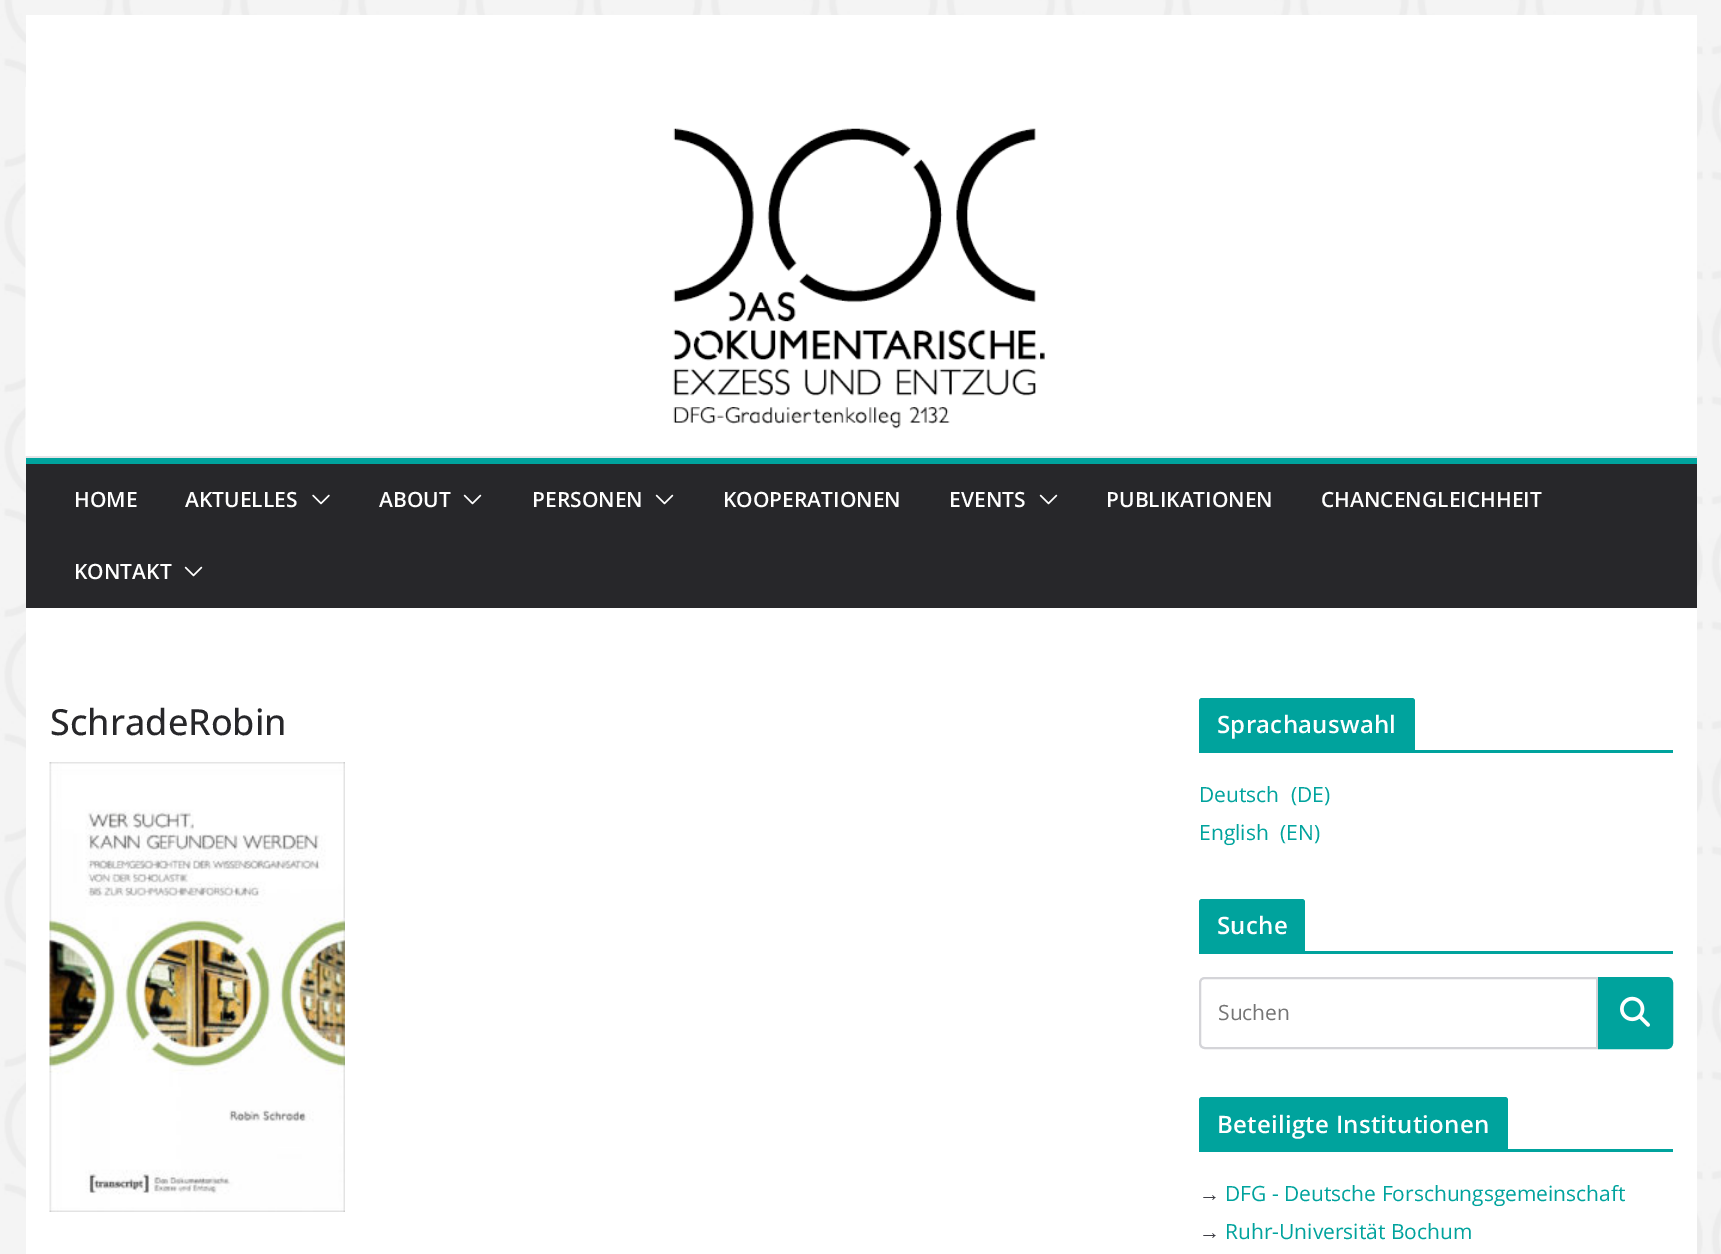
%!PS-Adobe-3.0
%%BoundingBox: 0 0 1721 1254
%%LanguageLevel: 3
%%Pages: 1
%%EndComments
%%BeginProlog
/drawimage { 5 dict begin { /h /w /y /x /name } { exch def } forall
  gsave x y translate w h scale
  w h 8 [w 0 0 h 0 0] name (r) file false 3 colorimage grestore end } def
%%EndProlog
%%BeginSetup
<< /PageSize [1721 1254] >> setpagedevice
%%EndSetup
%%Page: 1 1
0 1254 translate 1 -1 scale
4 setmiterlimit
1 setgray
0 0 1721 1254 rectfill
(images/1.raw) 0 0 1721 1254 drawimage
26 15 1671 441 rectfill
(images/2.raw) 25 87 1020 369 drawimage
0.894 0.894 0.906 setrgbcolor
26 456 1671 2 rectfill
0.153 0.153 0.165 setrgbcolor
26 464 1671 144 rectfill
0 0.639 0.616 setrgbcolor
26 458 1671 6 rectfill
(images/3.raw) 312 494 18 11 drawimage
(images/4.raw) 463 494 19 11 drawimage
(images/4.raw) 655 494 19 11 drawimage
(images/4.raw) 1039 494 19 11 drawimage
(images/4.raw) 184 566 19 11 drawimage
1 setgray
26 608 1671 646 rectfill
(images/5.raw) 49 762 296 450 drawimage
0 0.639 0.616 setrgbcolor
1199 750 474 3 rectfill
newpath 1202 698 moveto 1412 698 lineto 1413.5 698 1415 699.5 1415 701 curveto 1415 750 lineto 1199 750 lineto 1199 701 lineto 1199 699.5 1200.5 698 1202 698 curveto closepath fill
1199 951 474 3 rectfill
newpath 1202 899 moveto 1302 899 lineto 1303.5 899 1305 900.5 1305 902 curveto 1305 951 lineto 1199 951 lineto 1199 902 lineto 1199 900.5 1200.5 899 1202 899 curveto closepath fill
0.831 0.831 0.847 setrgbcolor
2 setlinewidth
newpath 1205 978 moveto 1597 978 lineto 1597 1048 lineto 1205 1048 lineto 1202 1048 1200 1046 1200 1043 curveto 1200 983 lineto 1200 980 1202 978 1205 978 curveto closepath stroke
0 0.639 0.616 setrgbcolor
newpath 1599 978 moveto 1667 978 lineto 1670 978 1672 980 1672 983 curveto 1672 1043 lineto 1672 1046 1670 1048 1667 1048 curveto 1599 1048 lineto closepath gsave fill grestore
stroke
(images/6.raw) 1620 996 30 31 drawimage
1199 1149 474 3 rectfill
newpath 1202 1097 moveto 1505 1097 lineto 1506.5 1097 1508 1098.5 1508 1100 curveto 1508 1149 lineto 1199 1149 lineto 1199 1100 lineto 1199 1098.5 1200.5 1097 1202 1097 curveto closepath fill
/OpenSans-SemiBold [21 0 0 -21 0 0] selectfont
1 setgray
74 507 moveto (HOME) show
185 507 moveto (AKTUELLES) show
379 507 moveto (ABOUT) show
532 507 moveto (PERSONEN) show
723 507 moveto (KOOPERATIONEN) show
949 507 moveto (EVENTS) show
1106 507 moveto (PUBLIKATIONEN) show
1321 507 moveto (CHANCENGLEICHHEIT) show
74 579 moveto (KONTAKT) show
/OpenSans-Medium [36 0 0 -36 0 0] selectfont
0.153 0.153 0.165 setrgbcolor
50 735 moveto (SchradeRobin) show
/OpenSans-SemiBold [24 0 0 -24 0 0] selectfont
1 setgray
1217 733 moveto 0.25 0 (Sprachauswahl) ashow
/OpenSans-Regular [21 0 0 -21 0 0] selectfont
0 0.639 0.616 setrgbcolor
1199 802 moveto (Deutsch) show
1291 802 moveto (\(DE\)) show
1199 840 moveto (English) show
1280 840 moveto (\(EN\)) show
/OpenSans-SemiBold [24 0 0 -24 0 0] selectfont
1 setgray
1217 934 moveto 0.25 0 (Suche) ashow
/OpenSans-Regular [21 0 0 -21 0 0] selectfont
0.459 setgray
1218 1020 moveto (Suchen) show
/OpenSans-SemiBold [24 0 0 -24 0 0] selectfont
1 setgray
1217 1133 moveto 0.25 0 (Beteiligte Institutionen) ashow
/LiberationSerif-Regular [21 0 0 -21 0 0] selectfont
0.247 0.247 0.275 setrgbcolor
1199 1201 moveto (→) show
/OpenSans-Regular [21 0 0 -21 0 0] selectfont
0 0.639 0.616 setrgbcolor
1225 1201 moveto (DFG - Deutsche Forschungsgemeinschaft) show
/LiberationSerif-Regular [21 0 0 -21 0 0] selectfont
0.247 0.247 0.275 setrgbcolor
1199 1239 moveto (→) show
/OpenSans-Regular [21 0 0 -21 0 0] selectfont
0 0.639 0.616 setrgbcolor
1225 1239 moveto (Ruhr-Universität Bochum) show
showpage
%%EOF
